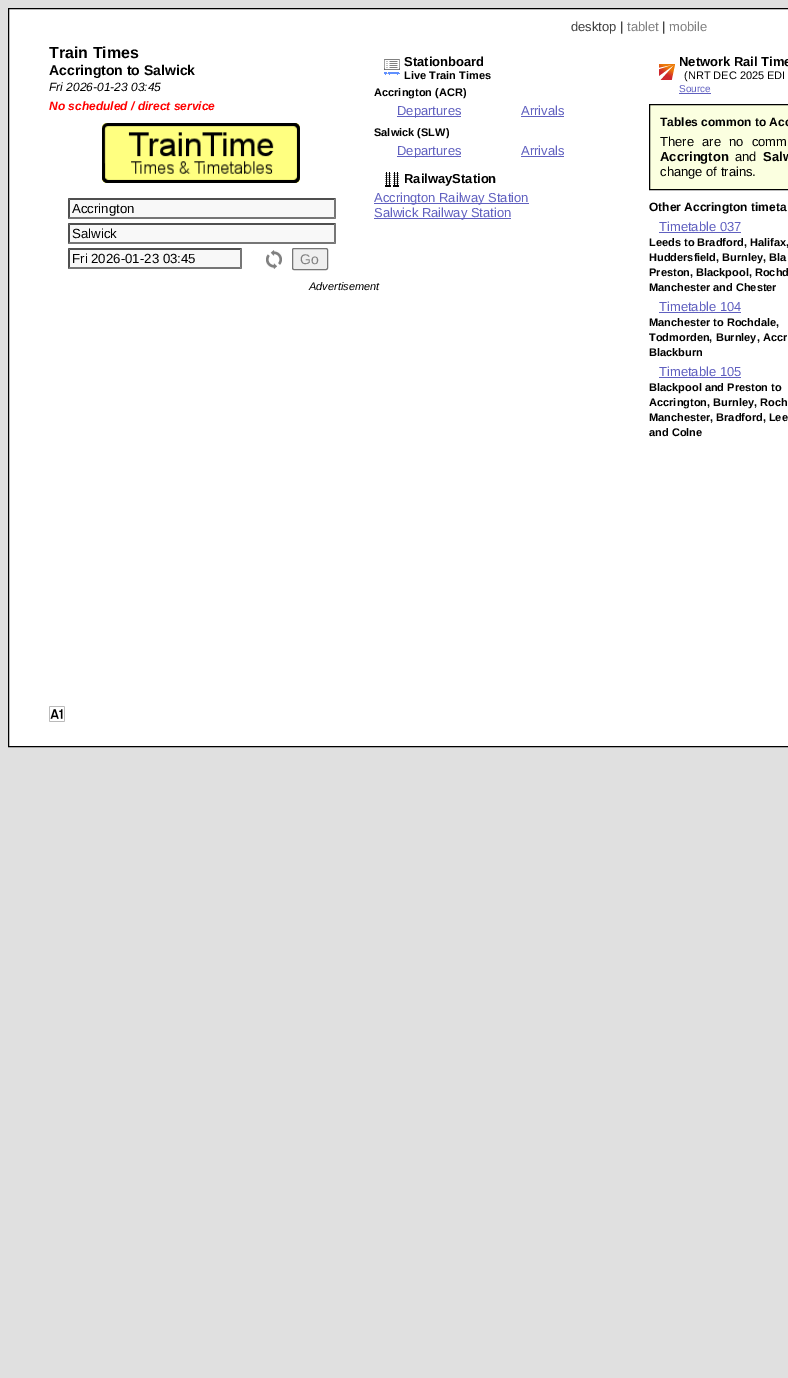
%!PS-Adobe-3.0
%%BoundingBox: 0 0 788 1378
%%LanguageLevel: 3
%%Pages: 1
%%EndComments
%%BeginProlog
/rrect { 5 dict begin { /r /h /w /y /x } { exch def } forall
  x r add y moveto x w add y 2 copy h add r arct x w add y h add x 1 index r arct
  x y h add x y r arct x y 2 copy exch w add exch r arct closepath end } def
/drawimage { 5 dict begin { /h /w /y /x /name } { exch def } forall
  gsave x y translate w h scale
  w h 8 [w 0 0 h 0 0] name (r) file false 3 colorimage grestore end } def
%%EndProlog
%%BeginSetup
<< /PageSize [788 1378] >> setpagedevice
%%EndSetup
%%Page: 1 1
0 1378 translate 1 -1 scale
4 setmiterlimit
0.878 setgray
0 0 788 1378 rectfill
1 setgray
newpath 8.5 8.5 moveto 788.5 8.5 lineto 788.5 746.5 lineto 8.5 746.5 lineto closepath gsave fill grestore
0 setgray
stroke
(images/1.raw) 102 123 198 60 drawimage
0.973 setgray
68 198 268 21 rectfill
0.31 setgray
newpath 68 198 moveto 336 198 lineto 334 200 lineto 70 200 lineto closepath fill
0.463 setgray
newpath 336 198 moveto 336 219 lineto 334 217 lineto 334 200 lineto closepath fill
newpath 336 219 moveto 68 219 lineto 70 217 lineto 334 217 lineto closepath fill
0.31 setgray
newpath 68 219 moveto 68 198 lineto 70 200 lineto 70 217 lineto closepath fill
0.973 setgray
68 223 268 21 rectfill
0.31 setgray
newpath 68 223 moveto 336 223 lineto 334 225 lineto 70 225 lineto closepath fill
0.463 setgray
newpath 336 223 moveto 336 244 lineto 334 242 lineto 334 225 lineto closepath fill
newpath 336 244 moveto 68 244 lineto 70 242 lineto 334 242 lineto closepath fill
0.31 setgray
newpath 68 244 moveto 68 223 lineto 70 225 lineto 70 242 lineto closepath fill
0.973 setgray
68 248 174 21 rectfill
0.31 setgray
newpath 68 248 moveto 242 248 lineto 240 250 lineto 70 250 lineto closepath fill
0.463 setgray
newpath 242 248 moveto 242 269 lineto 240 267 lineto 240 250 lineto closepath fill
newpath 242 269 moveto 68 269 lineto 70 267 lineto 240 267 lineto closepath fill
0.31 setgray
newpath 68 269 moveto 68 248 lineto 70 250 lineto 70 267 lineto closepath fill
(images/2.raw) 266 250 16 19 drawimage
0.937 setgray
292.5 248.5 35 21 1.5 rrect gsave fill grestore
0.463 setgray
stroke
(images/3.raw) 384 59 16 16 drawimage
0.376 0.376 0.753 setrgbcolor
397 116 64 1 rectfill
521 116 43 1 rectfill
397 156 64 1 rectfill
521 156 43 1 rectfill
(images/4.raw) 385 172 14 15 drawimage
374 203 155 1 rectfill
374 218 137 1 rectfill
(images/5.raw) 659 64 16 16 drawimage
679 93 32 1 rectfill
0.984 1 0.878 setrgbcolor
newpath 649.5 104.5 moveto 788.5 104.5 lineto 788.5 189.5 lineto 649.5 189.5 lineto closepath gsave fill grestore
0 setgray
stroke
0.376 0.376 0.753 setrgbcolor
659 232 82 1 rectfill
659 312 82 1 rectfill
659 377 82 1 rectfill
(images/6.raw) 49 706 16 16 drawimage
/LiberationSans-Regular [13 0 0 -13 0 0] selectfont
0.251 setgray
571 31 moveto (desktop) show
0 setgray
620 31 moveto (|) show
0.502 setgray
627 31 moveto (tablet) show
0 setgray
662 31 moveto (|) show
0.502 setgray
669 31 moveto (mobile) show
/LiberationSans-Bold [16 0 0 -16 0 0] selectfont
0 setgray
49 58 moveto (Train Times) show
/LiberationSans-Bold [14 0 0 -14 0 0] selectfont
49 75 moveto (Accrington to Salwick) show
/LiberationSans-Italic [12 0 0 -12 0 0] selectfont
49 91 moveto (Fri 2026-01-23 03:45) show
/LiberationSans-BoldItalic [12 0 0 -12 0 0] selectfont
1 0 0 setrgbcolor
49 110 moveto (No scheduled / direct service) show
/LiberationSans-Regular [13.25 0 0 -13.25 0 0] selectfont
0 setgray
72 213 moveto (Accrington) show
72 238 moveto (Salwick) show
72 263 moveto (Fri 2026-01-23 03:45) show
/LiberationSans-Regular [14 0 0 -14 0 0] selectfont
0.502 setgray
300 264 moveto (Go) show
/LiberationSans-Bold [13 0 0 -13 0 0] selectfont
0 setgray
404 66 moveto (Stationboard) show
/LiberationSans-Bold [11 0 0 -11 0 0] selectfont
404 79 moveto (Live Train Times) show
374 96 moveto (Accrington \(ACR\)) show
/LiberationSans-Regular [13 0 0 -13 0 0] selectfont
0.376 0.376 0.753 setrgbcolor
397 115 moveto (Departures) show
521 115 moveto (Arrivals) show
/LiberationSans-Bold [11 0 0 -11 0 0] selectfont
0 setgray
374 136 moveto (Salwick \(SLW\)) show
/LiberationSans-Regular [13 0 0 -13 0 0] selectfont
0.376 0.376 0.753 setrgbcolor
397 155 moveto (Departures) show
521 155 moveto (Arrivals) show
/LiberationSans-Bold [13 0 0 -13 0 0] selectfont
0 setgray
404 183 moveto (RailwayStation) show
/LiberationSans-Regular [13 0 0 -13 0 0] selectfont
0.376 0.376 0.753 setrgbcolor
374 202 moveto (Accrington Railway Station) show
374 217 moveto (Salwick Railway Station) show
/LiberationSans-Italic [11 0 0 -11 0 0] selectfont
0 setgray
309 290 moveto (Advertisement) show
/LiberationSans-Bold [13 0 0 -13 0 0] selectfont
679 66 moveto (Network Rail Time) show
/LiberationSans-Regular [11 0 0 -11 0 0] selectfont
684 79 moveto (\(NRT DEC 2025 EDI) show
/LiberationSans-Regular [10 0 0 -10 0 0] selectfont
0.376 0.376 0.753 setrgbcolor
679 92 moveto (Source) show
/LiberationSans-Bold [12 0 0 -12 0 0] selectfont
0 setgray
660 126 moveto (Tables common to Acc) show
/LiberationSans-Regular [13 0 0 -13 0 0] selectfont
660 146 moveto 4.5 0 32 (There are no comm) widthshow
/LiberationSans-Bold [13 0 0 -13 0 0] selectfont
660 161 moveto (Accrington) show
/LiberationSans-Regular [13 0 0 -13 0 0] selectfont
735 161 moveto (and) show
/LiberationSans-Bold [13 0 0 -13 0 0] selectfont
763 161 moveto (Salw) show
/LiberationSans-Regular [13 0 0 -13 0 0] selectfont
660 176 moveto (change of trains.) show
/LiberationSans-Bold [12 0 0 -12 0 0] selectfont
649 211 moveto (Other Accrington timeta) show
/LiberationSans-Regular [13 0 0 -13 0 0] selectfont
0.376 0.376 0.753 setrgbcolor
659 231 moveto (Timetable 037) show
/LiberationSans-Bold [11 0 0 -11 0 0] selectfont
0 setgray
649 246 moveto (Leeds to Bradford, Halifax,) show
649 261 moveto (Huddersfield, Burnley, Bla) show
649 276 moveto (Preston, Blackpool, Rochd) show
649 291 moveto (Manchester and Chester) show
/LiberationSans-Regular [13 0 0 -13 0 0] selectfont
0.376 0.376 0.753 setrgbcolor
659 311 moveto (Timetable 104) show
/LiberationSans-Bold [11 0 0 -11 0 0] selectfont
0 setgray
649 326 moveto (Manchester to Rochdale,) show
649 341 moveto (Todmorden, Burnley, Accr) show
649 356 moveto (Blackburn) show
/LiberationSans-Regular [13 0 0 -13 0 0] selectfont
0.376 0.376 0.753 setrgbcolor
659 376 moveto (Timetable 105) show
/LiberationSans-Bold [11 0 0 -11 0 0] selectfont
0 setgray
649 391 moveto (Blackpool and Preston to) show
649 406 moveto (Accrington, Burnley, Roch) show
649 421 moveto (Manchester, Bradford, Lee) show
649 436 moveto (and Colne) show
showpage
%%EOF
